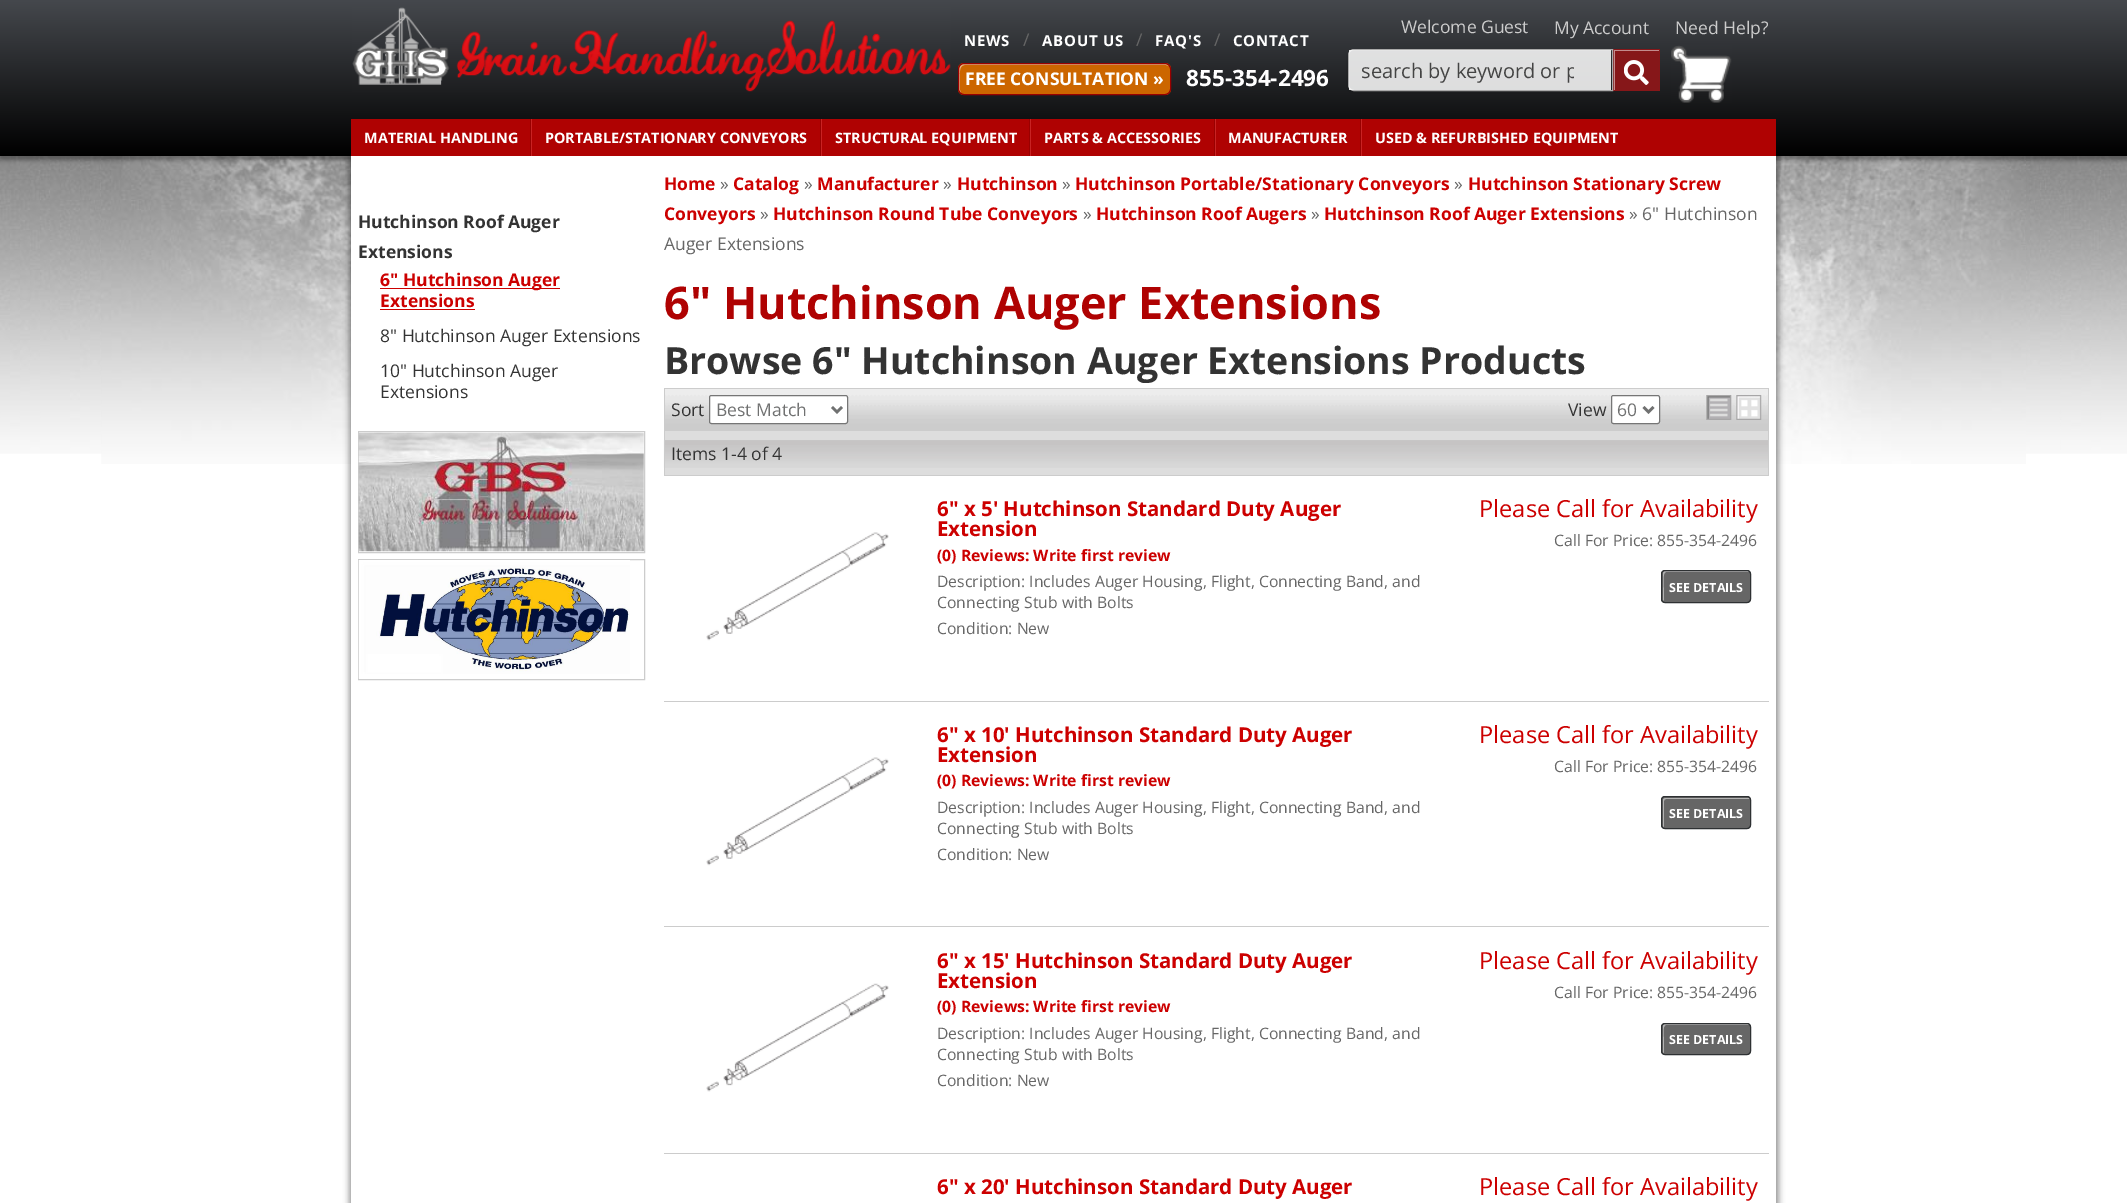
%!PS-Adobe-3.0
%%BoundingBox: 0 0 2127 1203
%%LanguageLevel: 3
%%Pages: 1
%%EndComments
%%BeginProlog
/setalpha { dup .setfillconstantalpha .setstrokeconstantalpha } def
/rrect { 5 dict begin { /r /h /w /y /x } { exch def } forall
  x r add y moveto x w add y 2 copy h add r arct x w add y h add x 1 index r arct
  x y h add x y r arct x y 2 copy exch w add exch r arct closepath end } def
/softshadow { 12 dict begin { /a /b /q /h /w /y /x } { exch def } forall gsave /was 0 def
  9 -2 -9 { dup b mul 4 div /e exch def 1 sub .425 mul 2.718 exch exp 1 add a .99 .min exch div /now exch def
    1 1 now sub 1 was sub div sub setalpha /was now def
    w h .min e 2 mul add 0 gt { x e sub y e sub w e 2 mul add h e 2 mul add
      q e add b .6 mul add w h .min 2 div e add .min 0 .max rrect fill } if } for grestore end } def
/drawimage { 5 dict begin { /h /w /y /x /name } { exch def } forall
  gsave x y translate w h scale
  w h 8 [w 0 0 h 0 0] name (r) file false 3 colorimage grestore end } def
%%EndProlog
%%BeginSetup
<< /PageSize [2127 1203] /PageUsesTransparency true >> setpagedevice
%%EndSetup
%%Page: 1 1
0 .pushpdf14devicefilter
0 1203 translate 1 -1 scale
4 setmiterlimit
1 setgray
0 0 2127 1203 rectfill
(images/1.raw) 0 156 2127 298 drawimage
(images/2.raw) 101 156 1925 308 drawimage
0 setgray
-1 1 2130 159 0 2 0.33 softshadow
gsave newpath 0 0 moveto 2127 0 lineto 2127 156 lineto 0 156 lineto closepath clip newpath
<< /ShadingType 2 /ColorSpace /DeviceRGB /Coords [1064 0 1064 156] /Extend [true true] /Function << /FunctionType 2 /Domain [0 1] /C0 [0.271 0.282 0.302] /C1 [0 0 0] /N 1 >> >> shfill grestore
(images/3.raw) 352 7 599 85 drawimage
0.8 0.4 0 setrgbcolor
958 63 213 32 6 rrect fill
0.902 0.702 0.502 setrgbcolor
newpath 965 65 moveto 1166 65 lineto 1169 66 lineto 1166 64 lineto 964 64 lineto 958 64 959 72 959 76 curveto 959 79 957 90 961 93 curveto 959 90 960 83 960 80 curveto 960 76 958 65 965 65 curveto closepath fill
0.6 0 0 setrgbcolor
958.5 63.5 212 31 5.5 rrect stroke
0.525 0.09 0.098 setrgbcolor
1613 49 47 42 rectfill
0.04 setalpha
0 setgray
newpath 1350 50 moveto 1347 52 1346 54 1346 57 curveto 1346 86 lineto 1346 90 1350 94 1354 94 curveto 1614 94 lineto 1614 49 lineto 1612 49 lineto 1612 91 lineto 1354 91 lineto 1350 91 1348 88 1348 85 curveto 1348 55 lineto 1348 53 1348 51 1350 50 curveto closepath fill
1 setalpha
0.667 setgray
newpath 1354 49.5 moveto 1612.5 49.5 lineto 1612.5 90.5 lineto 1354 90.5 lineto 1351 90.5 1348.5 88 1348.5 85 curveto 1348.5 55 lineto 1348.5 52 1351 49.5 1354 49.5 curveto closepath stroke
0.85 setalpha
1 setgray
1349 50 262 40 rectfill
gsave
1614 50 45 40 rectclip
1 setalpha
0.765 0.545 0.549 setrgbcolor
newpath 1490 -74 moveto 1782 -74 lineto 1782 214 lineto 1490 214 lineto closepath 1615 51 moveto 1660 51 lineto 1660 91 lineto 1615 91 lineto closepath eofill
grestore
1 setalpha
(images/4.raw) 1624 60 25 25 drawimage
(images/5.raw) 1671 45 61 58 drawimage
0 setgray
349 154 1430 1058 0 3 0.4 softshadow
0.686 0.008 0.008 setrgbcolor
351 119 1425 37 rectfill
0.6 0 0 setrgbcolor
530 119 1 37 rectfill
820 119 1 37 rectfill
0.784 0.137 0.137 setrgbcolor
531 119 1 37 rectfill
0.6 0 0 setrgbcolor
1029 119 1 37 rectfill
0.784 0.137 0.137 setrgbcolor
821 119 1 37 rectfill
0.6 0 0 setrgbcolor
1214 119 1 37 rectfill
0.784 0.137 0.137 setrgbcolor
1030 119 1 37 rectfill
0.6 0 0 setrgbcolor
1360 119 1 37 rectfill
0.784 0.137 0.137 setrgbcolor
1215 119 1 37 rectfill
1361 119 1 37 rectfill
1 setgray
351 156 1425 1047 rectfill
0.8 0 0 setrgbcolor
380 288 180 1 rectfill
380 309 95 1 rectfill
0.8 setgray
358.5 431.5 286 121 rectstroke
(images/6.raw) 358 432 286 120 drawimage
358.5 559.5 286 120 rectstroke
(images/7.raw) 358 560 272 119 drawimage
665 423 1103 8 rectfill
(images/8.raw) 665 389 1103 35 drawimage
664 388 1105 1 rectfill
1768 388 1 88 rectfill
664 388 1 43 rectfill
1 setgray
709.5 395.5 138 28 2 rrect gsave fill grestore
0.463 setgray
stroke
0.439 0.443 0.443 setrgbcolor
2.5 setlinewidth
newpath 832 407 moveto 837 412 lineto 842 407 lineto stroke
1 setgray
1611.5 395.5 48 28 2 rrect gsave fill grestore
0.463 setgray
1 setlinewidth
stroke
0.439 0.443 0.443 setrgbcolor
2.5 setlinewidth
newpath 1643.5 407 moveto 1648.5 412 lineto 1653.5 407 lineto stroke
(images/9.raw) 1706 395 56 25 drawimage
0.867 setgray
665 431 1103 44 rectfill
(images/10.raw) 663 440 1105 28 drawimage
0.8 setgray
664 475 1105 1 rectfill
664 431 1 45 rectfill
664 701 1105 1 rectfill
(images/11.raw) 706 532 183 109 drawimage
0.4 setgray
1661 570 90 33 4 rrect fill
0.702 setgray
newpath 1666 572 moveto 1750 572 lineto 1749 572 1748 571 1748 571 curveto 1666 571 lineto 1664 571 1663 572 1663 574 curveto 1663 598 lineto 1663 599 1663 600 1664 601 curveto 1664 592 lineto 1664 589 1662 572 1666 572 curveto closepath fill
0.18 0.192 0.2 setrgbcolor
1 setlinewidth
1661.5 570.5 89 32 3.5 rrect stroke
0.8 setgray
664 926 1105 1 rectfill
(images/11.raw) 706 757 183 109 drawimage
0.4 setgray
1661 796 90 33 4 rrect fill
0.702 setgray
newpath 1666 799 moveto 1750 799 lineto 1749 798 1748 798 1748 798 curveto 1666 798 lineto 1664 798 1663 799 1663 800 curveto 1663 826 lineto 1663 826 1664 827 1664 828 curveto 1664 805 lineto 1664 804 1663 799 1666 799 curveto closepath fill
0.18 0.192 0.2 setrgbcolor
1661.5 796.5 89 32 3.5 rrect stroke
0.8 setgray
664 1153 1105 1 rectfill
(images/12.raw) 706 983 183 109 drawimage
0.4 setgray
1661 1023 90 32 4 rrect fill
0.702 setgray
newpath 1666 1025 moveto 1750 1025 lineto 1749 1024 1748 1024 1748 1024 curveto 1666 1024 lineto 1664 1024 1663 1025 1663 1026 curveto 1663 1052 lineto 1663 1052 1664 1053 1664 1054 curveto 1664 1040 lineto 1664 1038 1662 1025 1666 1025 curveto closepath fill
0.18 0.192 0.2 setrgbcolor
1661.5 1023.5 89 31 3.5 rrect stroke
/OpenSans-Regular [17.5 0 0 -17.5 0 0] selectfont
0.8 setgray
1401 33 moveto (Welcome Guest) show
1554 34 moveto (My Account) show
1675 34 moveto (Need Help?) show
/OpenSans-Bold [15 0 0 -15 0 0] selectfont
1 setgray
964 46 moveto 0.75 0 (NEWS) ashow
/OpenSans-Regular [17.5 0 0 -17.5 0 0] selectfont
0.4 setgray
1023 46 moveto (/) show
/OpenSans-Bold [15 0 0 -15 0 0] selectfont
1 setgray
1042 46 moveto 0.75 0 (ABOUT US) ashow
/OpenSans-Regular [17.5 0 0 -17.5 0 0] selectfont
0.4 setgray
1136 46 moveto (/) show
/OpenSans-Bold [15 0 0 -15 0 0] selectfont
1 setgray
1155 46 moveto 0.75 0 (FAQ'S) ashow
/OpenSans-Regular [17.5 0 0 -17.5 0 0] selectfont
0.4 setgray
1214 46 moveto (/) show
/OpenSans-Bold [15 0 0 -15 0 0] selectfont
1 setgray
1233 46 moveto 0.75 0 (CONTACT) ashow
/OpenSans-Bold [17.5 0 0 -17.5 0 0] selectfont
965 85 moveto (FREE CONSULTATION ») show
/OpenSans-Bold [22.5 0 0 -22.5 0 0] selectfont
1186 86 moveto (855-354-2496) show
gsave
1361 56 213 28 rectclip
/OpenSans-Regular [20 0 0 -20 0 0] selectfont
0.267 setgray
1361 78 moveto (search by keyword or p) show
grestore
/OpenSans-Bold [14.4 0 0 -14.4 0 0] selectfont
364 143 moveto (MATERIAL HANDLING) show
545 143 moveto (PORTABLE/STATIONARY CONVEYORS) show
835 143 moveto (STRUCTURAL EQUIPMENT) show
1044 143 moveto (PARTS & ACCESSORIES) show
1228 143 moveto (MANUFACTURER) show
1375 143 moveto (USED & REFURBISHED EQUIPMENT) show
/OpenSans-Bold [17.5 0 0 -17.5 0 0] selectfont
0.2 setgray
358 228 moveto (Hutchinson Roof Auger) show
358 258 moveto (Extensions) show
0.8 0 0 setrgbcolor
380 286 moveto (6" Hutchinson Auger) show
380 307 moveto (Extensions) show
/OpenSans-Regular [17.5 0 0 -17.5 0 0] selectfont
0.2 setgray
380 342 moveto (8" Hutchinson Auger Extensions) show
380 377 moveto (10" Hutchinson Auger) show
380 398 moveto (Extensions) show
/OpenSans-Bold [17.5 0 0 -17.5 0 0] selectfont
0.8 0 0 setrgbcolor
664 190 moveto (Home) show
/OpenSans-Regular [17.5 0 0 -17.5 0 0] selectfont
0.4 setgray
720 190 moveto (») show
/OpenSans-Bold [17.5 0 0 -17.5 0 0] selectfont
0.8 0 0 setrgbcolor
733 190 moveto (Catalog) show
/OpenSans-Regular [17.5 0 0 -17.5 0 0] selectfont
0.4 setgray
804 190 moveto (») show
/OpenSans-Bold [17.5 0 0 -17.5 0 0] selectfont
0.8 0 0 setrgbcolor
817 190 moveto (Manufacturer) show
/OpenSans-Regular [17.5 0 0 -17.5 0 0] selectfont
0.4 setgray
943 190 moveto (») show
/OpenSans-Bold [17.5 0 0 -17.5 0 0] selectfont
0.8 0 0 setrgbcolor
957 190 moveto (Hutchinson) show
/OpenSans-Regular [17.5 0 0 -17.5 0 0] selectfont
0.4 setgray
1062 190 moveto (») show
/OpenSans-Bold [17.5 0 0 -17.5 0 0] selectfont
0.8 0 0 setrgbcolor
1075 190 moveto (Hutchinson Portable/Stationary Conveyors) show
/OpenSans-Regular [17.5 0 0 -17.5 0 0] selectfont
0.4 setgray
1454 190 moveto (») show
/OpenSans-Bold [17.5 0 0 -17.5 0 0] selectfont
0.8 0 0 setrgbcolor
1468 190 moveto (Hutchinson Stationary Screw) show
664 220 moveto (Conveyors) show
/OpenSans-Regular [17.5 0 0 -17.5 0 0] selectfont
0.4 setgray
760 220 moveto (») show
/OpenSans-Bold [17.5 0 0 -17.5 0 0] selectfont
0.8 0 0 setrgbcolor
773 220 moveto (Hutchinson Round Tube Conveyors) show
/OpenSans-Regular [17.5 0 0 -17.5 0 0] selectfont
0.4 setgray
1083 220 moveto (») show
/OpenSans-Bold [17.5 0 0 -17.5 0 0] selectfont
0.8 0 0 setrgbcolor
1096 220 moveto (Hutchinson Roof Augers) show
/OpenSans-Regular [17.5 0 0 -17.5 0 0] selectfont
0.4 setgray
1311 220 moveto (») show
/OpenSans-Bold [17.5 0 0 -17.5 0 0] selectfont
0.8 0 0 setrgbcolor
1324 220 moveto (Hutchinson Roof Auger Extensions) show
/OpenSans-Regular [17.5 0 0 -17.5 0 0] selectfont
0.4 setgray
1629 220 moveto (» 6" Hutchinson) show
664 250 moveto (Auger Extensions) show
/OpenSans-Bold [45 0 0 -45 0 0] selectfont
0.686 0.008 0.008 setrgbcolor
664 319 moveto (6" Hutchinson Auger Extensions) show
/OpenSans-Bold [37.5 0 0 -37.5 0 0] selectfont
0.2 setgray
664 374 moveto (Browse 6" Hutchinson Auger Extensions Products) show
/OpenSans-Regular [17.5 0 0 -17.5 0 0] selectfont
671 416 moveto (Sort) show
0.439 0.443 0.443 setrgbcolor
716 416 moveto (Best Match) show
0.2 setgray
1568 416 moveto (View) show
0.439 0.443 0.443 setrgbcolor
1617 416 moveto (60) show
0.2 setgray
671 460 moveto (Items 1-4 of 4) show
/OpenSans-Bold [20.5 0 0 -20.5 0 0] selectfont
0.8 0 0 setrgbcolor
937 516 moveto (6" x 5' Hutchinson Standard Duty Auger) show
937 536 moveto (Extension) show
/OpenSans-Bold [15.75 0 0 -15.75 0 0] selectfont
937 561 moveto (\(0\) Reviews: Write first review) show
/OpenSans-Regular [15.75 0 0 -15.75 0 0] selectfont
0.4 setgray
937 587 moveto (Description: Includes Auger Housing, Flight, Connecting Band, and) show
937 608 moveto (Connecting Stub with Bolts) show
937 634 moveto (Condition: New) show
/OpenSans-Regular [23.6 0 0 -23.6 0 0] selectfont
0.8 0 0 setrgbcolor
1479 517 moveto (Please Call for Availability) show
/OpenSans-Regular [15.75 0 0 -15.75 0 0] selectfont
0.4 setgray
1554 546 moveto (Call For Price: 855-354-2496) show
/OpenSans-Bold [12.5 0 0 -12.5 0 0] selectfont
1 setgray
1669 592 moveto (SEE DETAILS) show
/OpenSans-Bold [20.5 0 0 -20.5 0 0] selectfont
0.8 0 0 setrgbcolor
937 742 moveto (6" x 10' Hutchinson Standard Duty Auger) show
937 762 moveto (Extension) show
/OpenSans-Bold [15.75 0 0 -15.75 0 0] selectfont
937 786 moveto (\(0\) Reviews: Write first review) show
/OpenSans-Regular [15.75 0 0 -15.75 0 0] selectfont
0.4 setgray
937 813 moveto (Description: Includes Auger Housing, Flight, Connecting Band, and) show
937 834 moveto (Connecting Stub with Bolts) show
937 860 moveto (Condition: New) show
/OpenSans-Regular [23.6 0 0 -23.6 0 0] selectfont
0.8 0 0 setrgbcolor
1479 743 moveto (Please Call for Availability) show
/OpenSans-Regular [15.75 0 0 -15.75 0 0] selectfont
0.4 setgray
1554 772 moveto (Call For Price: 855-354-2496) show
/OpenSans-Bold [12.5 0 0 -12.5 0 0] selectfont
1 setgray
1669 818 moveto (SEE DETAILS) show
/OpenSans-Bold [20.5 0 0 -20.5 0 0] selectfont
0.8 0 0 setrgbcolor
937 968 moveto (6" x 15' Hutchinson Standard Duty Auger) show
937 988 moveto (Extension) show
/OpenSans-Bold [15.75 0 0 -15.75 0 0] selectfont
937 1012 moveto (\(0\) Reviews: Write first review) show
/OpenSans-Regular [15.75 0 0 -15.75 0 0] selectfont
0.4 setgray
937 1039 moveto (Description: Includes Auger Housing, Flight, Connecting Band, and) show
937 1060 moveto (Connecting Stub with Bolts) show
937 1086 moveto (Condition: New) show
/OpenSans-Regular [23.6 0 0 -23.6 0 0] selectfont
0.8 0 0 setrgbcolor
1479 969 moveto (Please Call for Availability) show
/OpenSans-Regular [15.75 0 0 -15.75 0 0] selectfont
0.4 setgray
1554 998 moveto (Call For Price: 855-354-2496) show
/OpenSans-Bold [12.5 0 0 -12.5 0 0] selectfont
1 setgray
1669 1044 moveto (SEE DETAILS) show
/OpenSans-Bold [20.5 0 0 -20.5 0 0] selectfont
0.8 0 0 setrgbcolor
937 1194 moveto (6" x 20' Hutchinson Standard Duty Auger) show
/OpenSans-Regular [23.6 0 0 -23.6 0 0] selectfont
1479 1195 moveto (Please Call for Availability) show
.poppdf14devicefilter showpage
%%EOF
